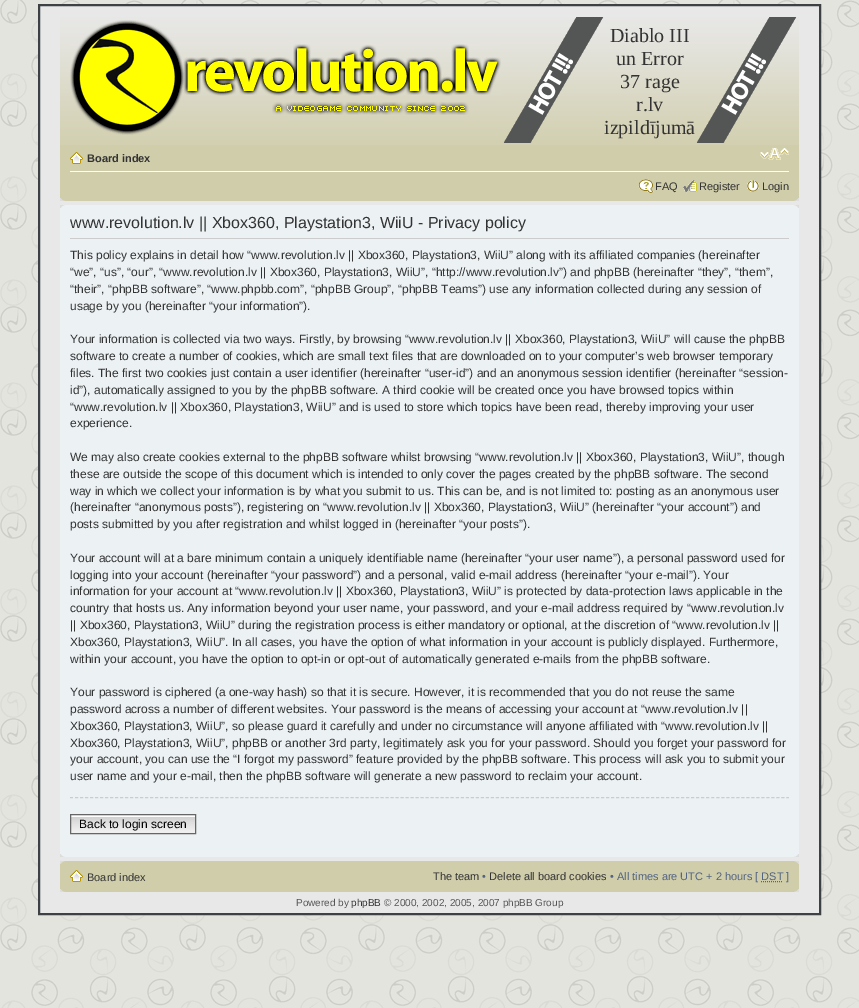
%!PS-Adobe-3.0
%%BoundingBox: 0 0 859 1008
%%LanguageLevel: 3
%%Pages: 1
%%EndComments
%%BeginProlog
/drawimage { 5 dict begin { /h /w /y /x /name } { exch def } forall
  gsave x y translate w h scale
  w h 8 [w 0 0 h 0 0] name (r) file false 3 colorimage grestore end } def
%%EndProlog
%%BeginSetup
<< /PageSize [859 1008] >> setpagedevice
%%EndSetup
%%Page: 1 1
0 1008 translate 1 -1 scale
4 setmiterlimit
1 setgray
0 0 859 1008 rectfill
(images/1.raw) 0 0 859 1008 drawimage
0.91 setgray
newpath 39 5 moveto 820 5 lineto 820 914 lineto 39 914 lineto closepath gsave fill grestore
0.239 0.255 0.267 setrgbcolor
2 setlinewidth
stroke
(images/2.raw) 60 17 739 128 drawimage
(images/3.raw) 70 20 431 115 drawimage
(images/4.raw) 503 17 101 126 drawimage
(images/4.raw) 696 17 101 126 drawimage
0.816 0.804 0.671 setrgbcolor
60 145 739 56 rectfill
1 setgray
70 171 719 1 rectfill
(images/5.raw) 70 152 13 12 drawimage
(images/6.raw) 760 148 29 12 drawimage
(images/7.raw) 638 179 16 14 drawimage
(images/8.raw) 683 180 14 13 drawimage
(images/9.raw) 747 180 12 12 drawimage
(images/10.raw) 60 198 5 3 drawimage
(images/11.raw) 794 198 5 3 drawimage
0.925 0.945 0.953 setrgbcolor
60 205 739 652 rectfill
(images/12.raw) 60 205 5 3 drawimage
(images/13.raw) 794 205 5 3 drawimage
0.8 setgray
70 238 719 1 rectfill
1 setlinewidth
[3 2.01] 0 setdash
newpath 70 797.5 moveto 789 797.5 lineto stroke
(images/14.raw) 71 816 124 17 drawimage
0.98 setgray
71 815 124 1 rectfill
0.4 setgray
[] 0 setdash
70.5 814.5 125 19 rectstroke
(images/15.raw) 60 854 5 3 drawimage
(images/16.raw) 794 854 5 3 drawimage
0.816 0.804 0.671 setrgbcolor
60 861 739 31 rectfill
(images/17.raw) 60 861 5 3 drawimage
(images/18.raw) 794 861 5 3 drawimage
(images/5.raw) 70 870 13 12 drawimage
0.325 0.392 0.51 setrgbcolor
[1 1] 0 setdash
newpath 761 881.5 moveto 783 881.5 lineto stroke
(images/10.raw) 60 889 5 3 drawimage
(images/11.raw) 794 889 5 3 drawimage
/LiberationSerif-Regular [20 0 0 -20 0 0] selectfont
0.2 setgray
610 42 moveto (Diablo III) show
616 65 moveto (un Error) show
620 88 moveto (37 rage) show
636 111 moveto (r.lv) show
604 134 moveto (izpildījumā) show
/LiberationSans-Bold [11 0 0 -11 0 0] selectfont
87 162 moveto (Board index) show
/LiberationSans-Regular [11 0 0 -11 0 0] selectfont
655 190 moveto (FAQ) show
699 190 moveto (Register) show
762 190 moveto (Login) show
/LiberationSans-Regular [16 0 0 -16 0 0] selectfont
70 228 moveto (www.revolution.lv || Xbox360, Playstation3, WiiU - Privacy policy) show
/LiberationSans-Regular [12 0 0 -12 0 0] selectfont
70 259 moveto (This policy explains in detail how “www.revolution.lv || Xbox360, Playstation3, WiiU” along with its affiliated companies \(hereinafter) show
70 276 moveto (“we”, “us”, “our”, “www.revolution.lv || Xbox360, Playstation3, WiiU”, “http://www.revolution.lv”\) and phpBB \(hereinafter “they”, “them”,) show
70 293 moveto (“their”, “phpBB software”, “www.phpbb.com”, “phpBB Group”, “phpBB Teams”\) use any information collected during any session of) show
70 310 moveto (usage by you \(hereinafter “your information”\).) show
70 343 moveto (Your information is collected via two ways. Firstly, by browsing “www.revolution.lv || Xbox360, Playstation3, WiiU” will cause the phpBB) show
70 360 moveto (software to create a number of cookies, which are small text files that are downloaded on to your computer’s web browser temporary) show
70 377 moveto (files. The first two cookies just contain a user identifier \(hereinafter “user-id”\) and an anonymous session identifier \(hereinafter “session-) show
70 394 moveto (id”\), automatically assigned to you by the phpBB software. A third cookie will be created once you have browsed topics within) show
70 411 moveto (“www.revolution.lv || Xbox360, Playstation3, WiiU” and is used to store which topics have been read, thereby improving your user) show
70 427 moveto (experience.) show
70 461 moveto (We may also create cookies external to the phpBB software whilst browsing “www.revolution.lv || Xbox360, Playstation3, WiiU”, though) show
70 478 moveto (these are outside the scope of this document which is intended to only cover the pages created by the phpBB software. The second) show
70 495 moveto (way in which we collect your information is by what you submit to us. This can be, and is not limited to: posting as an anonymous user) show
70 511 moveto (\(hereinafter “anonymous posts”\), registering on “www.revolution.lv || Xbox360, Playstation3, WiiU” \(hereinafter “your account”\) and) show
70 528 moveto (posts submitted by you after registration and whilst logged in \(hereinafter “your posts”\).) show
70 562 moveto (Your account will at a bare minimum contain a uniquely identifiable name \(hereinafter “your user name”\), a personal password used for) show
70 579 moveto (logging into your account \(hereinafter “your password”\) and a personal, valid e-mail address \(hereinafter “your e-mail”\). Your) show
70 595 moveto (information for your account at “www.revolution.lv || Xbox360, Playstation3, WiiU” is protected by data-protection laws applicable in the) show
70 612 moveto (country that hosts us. Any information beyond your user name, your password, and your e-mail address required by “www.revolution.lv) show
70 629 moveto (|| Xbox360, Playstation3, WiiU” during the registration process is either mandatory or optional, at the discretion of “www.revolution.lv ||) show
70 646 moveto (Xbox360, Playstation3, WiiU”. In all cases, you have the option of what information in your account is publicly displayed. Furthermore,) show
70 663 moveto (within your account, you have the option to opt-in or opt-out of automatically generated e-mails from the phpBB software.) show
70 696 moveto (Your password is ciphered \(a one-way hash\) so that it is secure. However, it is recommended that you do not reuse the same) show
70 713 moveto (password across a number of different websites. Your password is the means of accessing your account at “www.revolution.lv ||) show
70 730 moveto (Xbox360, Playstation3, WiiU”, so please guard it carefully and under no circumstance will anyone affiliated with “www.revolution.lv ||) show
70 747 moveto (Xbox360, Playstation3, WiiU”, phpBB or another 3rd party, legitimately ask you for your password. Should you forget your password for) show
70 763 moveto (your account, you can use the “I forgot my password” feature provided by the phpBB software. This process will ask you to submit your) show
70 780 moveto (user name and your e-mail, then the phpBB software will generate a new password to reclaim your account.) show
0 setgray
79 828 moveto (Back to login screen) show
/LiberationSans-Regular [11 0 0 -11 0 0] selectfont
0.2 setgray
87 881 moveto (Board index) show
433 880 moveto (The team) show
0.325 0.392 0.51 setrgbcolor
482 880 moveto (•) show
0.2 setgray
489 880 moveto (Delete all board cookies) show
0.325 0.392 0.51 setrgbcolor
610 880 moveto (• All times are UTC + 2 hours [ DST ]) show
/LiberationSans-Regular [10 0 0 -10 0 0] selectfont
0.333 setgray
296 906 moveto (Powered by) show
0.2 setgray
351 906 moveto (phpBB) show
0.333 setgray
384 906 moveto (© 2000, 2002, 2005, 2007 phpBB Group) show
showpage
%%EOF
